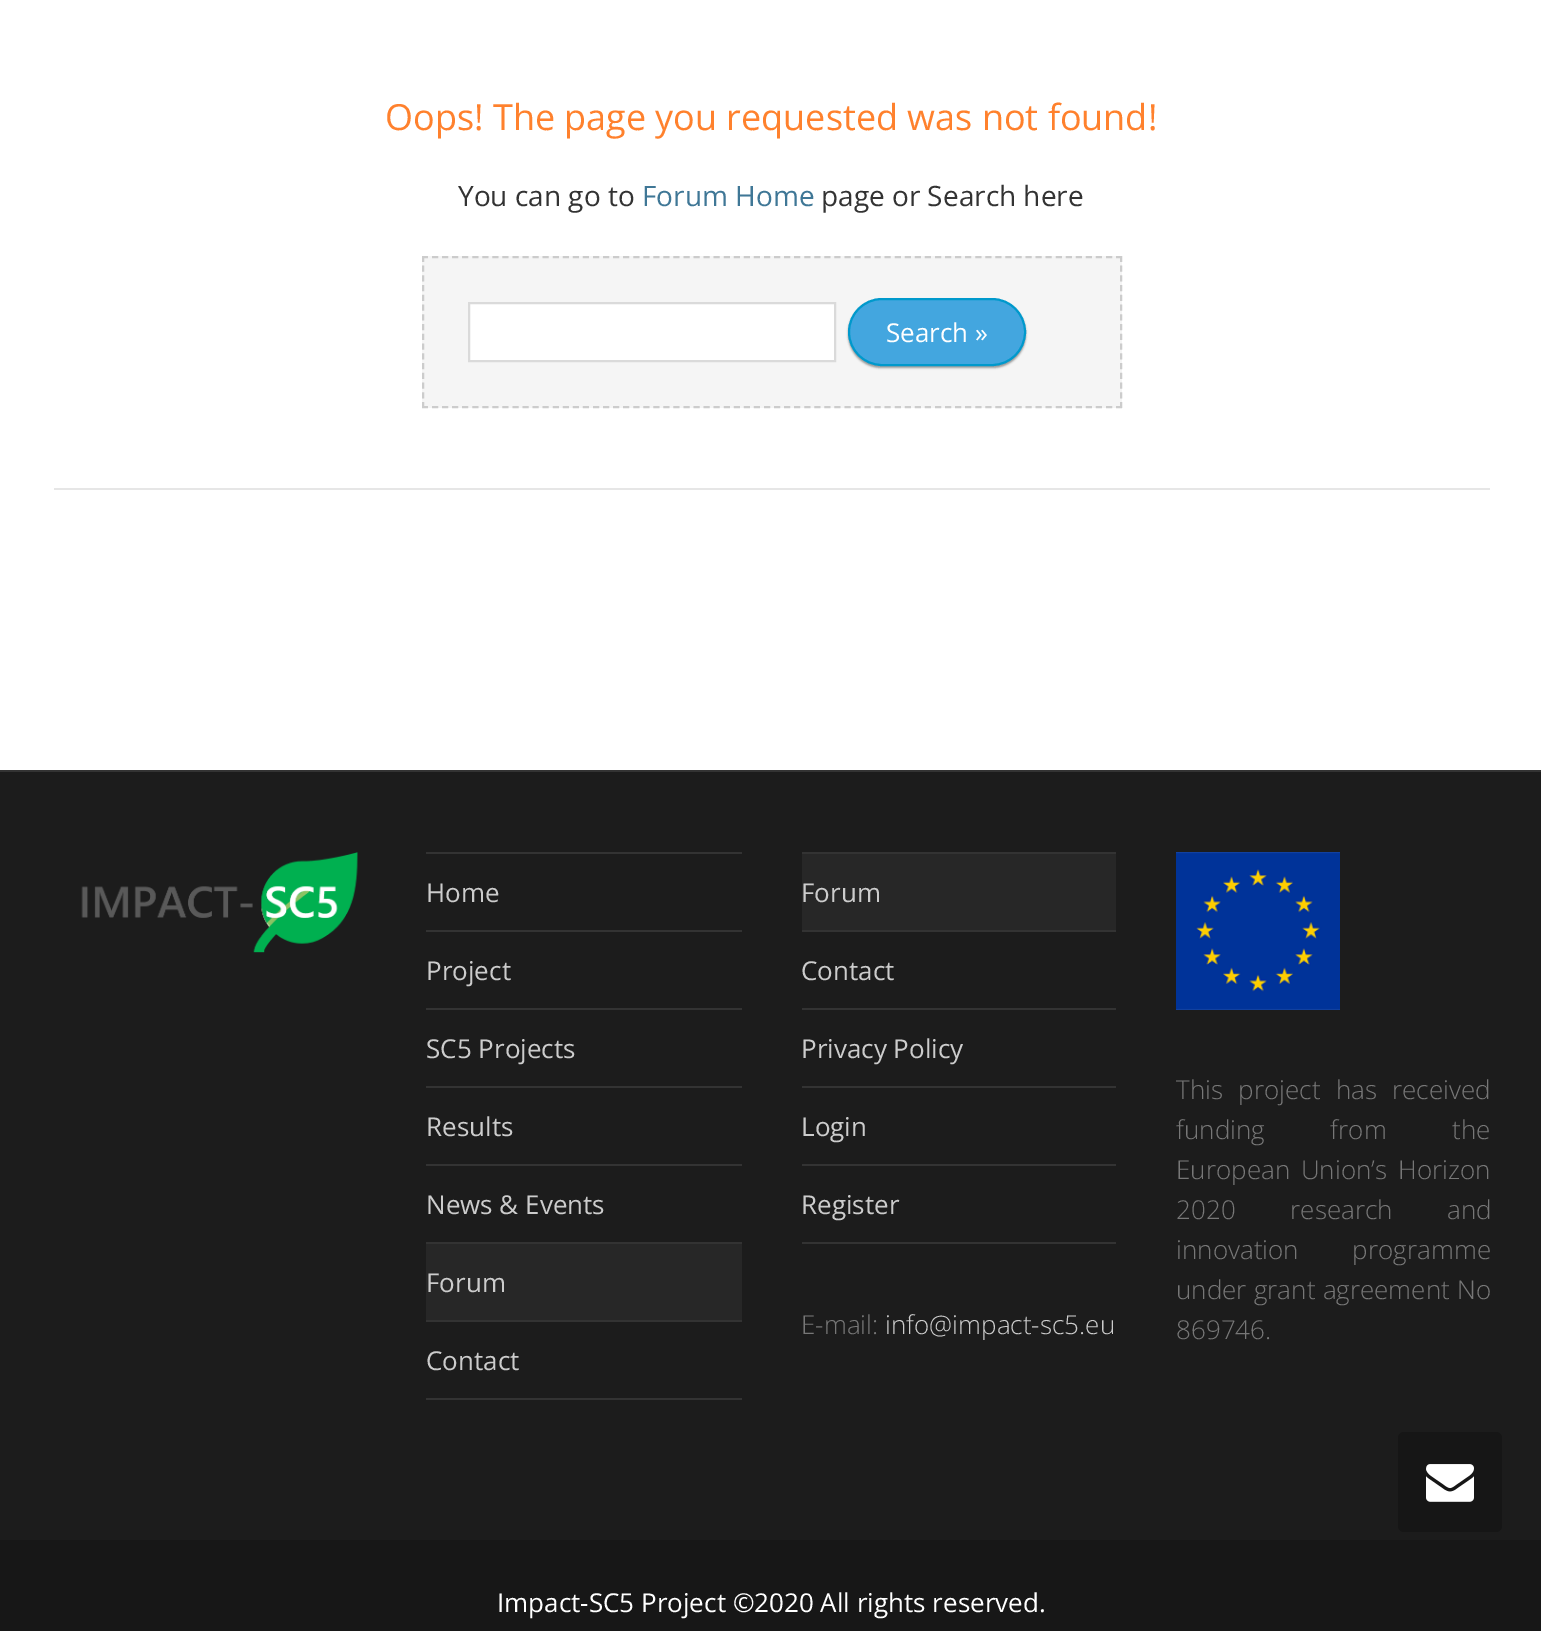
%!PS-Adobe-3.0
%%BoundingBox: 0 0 1541 1631
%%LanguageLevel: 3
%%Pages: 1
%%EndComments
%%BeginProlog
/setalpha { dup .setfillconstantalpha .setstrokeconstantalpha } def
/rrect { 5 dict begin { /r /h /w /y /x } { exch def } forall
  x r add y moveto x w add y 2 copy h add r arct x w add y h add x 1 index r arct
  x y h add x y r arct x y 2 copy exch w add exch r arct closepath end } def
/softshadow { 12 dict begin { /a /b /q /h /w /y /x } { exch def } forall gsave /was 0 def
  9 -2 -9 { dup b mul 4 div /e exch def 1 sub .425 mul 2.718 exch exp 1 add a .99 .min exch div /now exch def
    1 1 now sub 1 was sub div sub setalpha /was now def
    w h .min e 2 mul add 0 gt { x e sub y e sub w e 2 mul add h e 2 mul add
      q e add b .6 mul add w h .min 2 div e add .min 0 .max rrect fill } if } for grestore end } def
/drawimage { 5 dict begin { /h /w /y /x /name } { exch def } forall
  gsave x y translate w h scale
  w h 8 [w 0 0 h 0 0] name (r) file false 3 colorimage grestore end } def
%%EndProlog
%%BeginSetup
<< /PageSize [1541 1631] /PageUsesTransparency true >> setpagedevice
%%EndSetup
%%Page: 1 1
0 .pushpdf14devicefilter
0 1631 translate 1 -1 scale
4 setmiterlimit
1 setgray
0 0 1541 1631 rectfill
0.902 setgray
54 488 1436 2 rectfill
0.961 setgray
422 256 700 152 rectfill
0.8 setgray
2 setlinewidth
[6 4.06] 0 setdash
newpath 422 257 moveto 1122 257 lineto stroke
[6 3.74] 0 setdash
newpath 1121 256 moveto 1121 408 lineto stroke
[6 4.06] 0 setdash
newpath 422 407 moveto 1122 407 lineto stroke
[6 3.74] 0 setdash
newpath 423 256 moveto 423 408 lineto stroke
1 setgray
newpath 469 303 moveto 835 303 lineto 835 361 lineto 469 361 lineto closepath gsave fill grestore
0.855 setgray
[] 0 setdash
stroke
0.6 setgray
848 300 178 68 34 1 1 softshadow
0.263 0.651 0.875 setrgbcolor
849 299 176 66 33 rrect gsave fill grestore
0 0.6 0.8 setrgbcolor
stroke
0.11 setgray
0 772 1541 768 rectfill
0.2 setgray
0 770 1541 2 rectfill
(images/1.raw) 81 852 277 101 drawimage
426 852 316 2 rectfill
426 930 316 2 rectfill
426 1008 316 2 rectfill
426 1086 316 2 rectfill
426 1164 316 2 rectfill
426 1242 316 2 rectfill
0.153 setgray
426 1244 316 76 rectfill
0.2 setgray
426 1320 316 2 rectfill
426 1398 316 2 rectfill
0.153 setgray
802 854 314 76 rectfill
0.2 setgray
802 852 314 2 rectfill
802 930 314 2 rectfill
802 1008 314 2 rectfill
802 1086 314 2 rectfill
802 1164 314 2 rectfill
802 1242 314 2 rectfill
(images/2.raw) 1176 852 164 158 drawimage
0.086 setgray
1398 1432 104 100 6 rrect fill
(images/3.raw) 1426 1464 48 38 drawimage
0.09 setgray
0 1540 1541 91 rectfill
/OpenSans-Regular [36 0 0 -36 0 0] selectfont
1 0.506 0.176 setrgbcolor
385 130 moveto (Oops! The page you requested was not found!) show
/OpenSans-Regular [28 0 0 -28 0 0] selectfont
0.2 setgray
458 206 moveto (You can go to) show
0.247 0.467 0.588 setrgbcolor
642 206 moveto (Forum Home) show
0.2 setgray
821 206 moveto (page or Search here) show
/OpenSans-Regular [26 0 0 -26 0 0] selectfont
1 setgray
886 342 moveto (Search ») show
0.8 setgray
426 902 moveto (Home) show
426 980 moveto (Project) show
426 1058 moveto (SC5 Projects) show
426 1136 moveto (Results) show
426 1214 moveto (News & Events) show
426 1292 moveto (Forum) show
426 1370 moveto (Contact) show
801 902 moveto (Forum) show
801 980 moveto (Contact) show
801 1058 moveto (Privacy Policy) show
801 1136 moveto (Login) show
801 1214 moveto (Register) show
/OpenSans-Light [26 0 0 -26 0 0] selectfont
0.467 setgray
801 1334 moveto (E-mail:) show
0.8 setgray
885 1334 moveto (info@impact-sc5.eu) show
0.467 setgray
1176 1099 moveto 8.5 0 32 (This project has received) widthshow
1176 1139 moveto 59 0 32 (funding from the) widthshow
1176 1179 moveto 4 0 32 (European Union’s Horizon) widthshow
1176 1219 moveto 48 0 32 (2020 research and) widthshow
1176 1259 moveto 47 0 32 (innovation programme) widthshow
1176 1299 moveto 0.5 0 32 (under grant agreement No) widthshow
1176 1339 moveto (869746.) show
/OpenSans-Regular [26 0 0 -26 0 0] selectfont
1 setgray
497 1612 moveto (Impact-SC5 Project ©2020 All rights reserved.) show
.poppdf14devicefilter showpage
%%EOF
